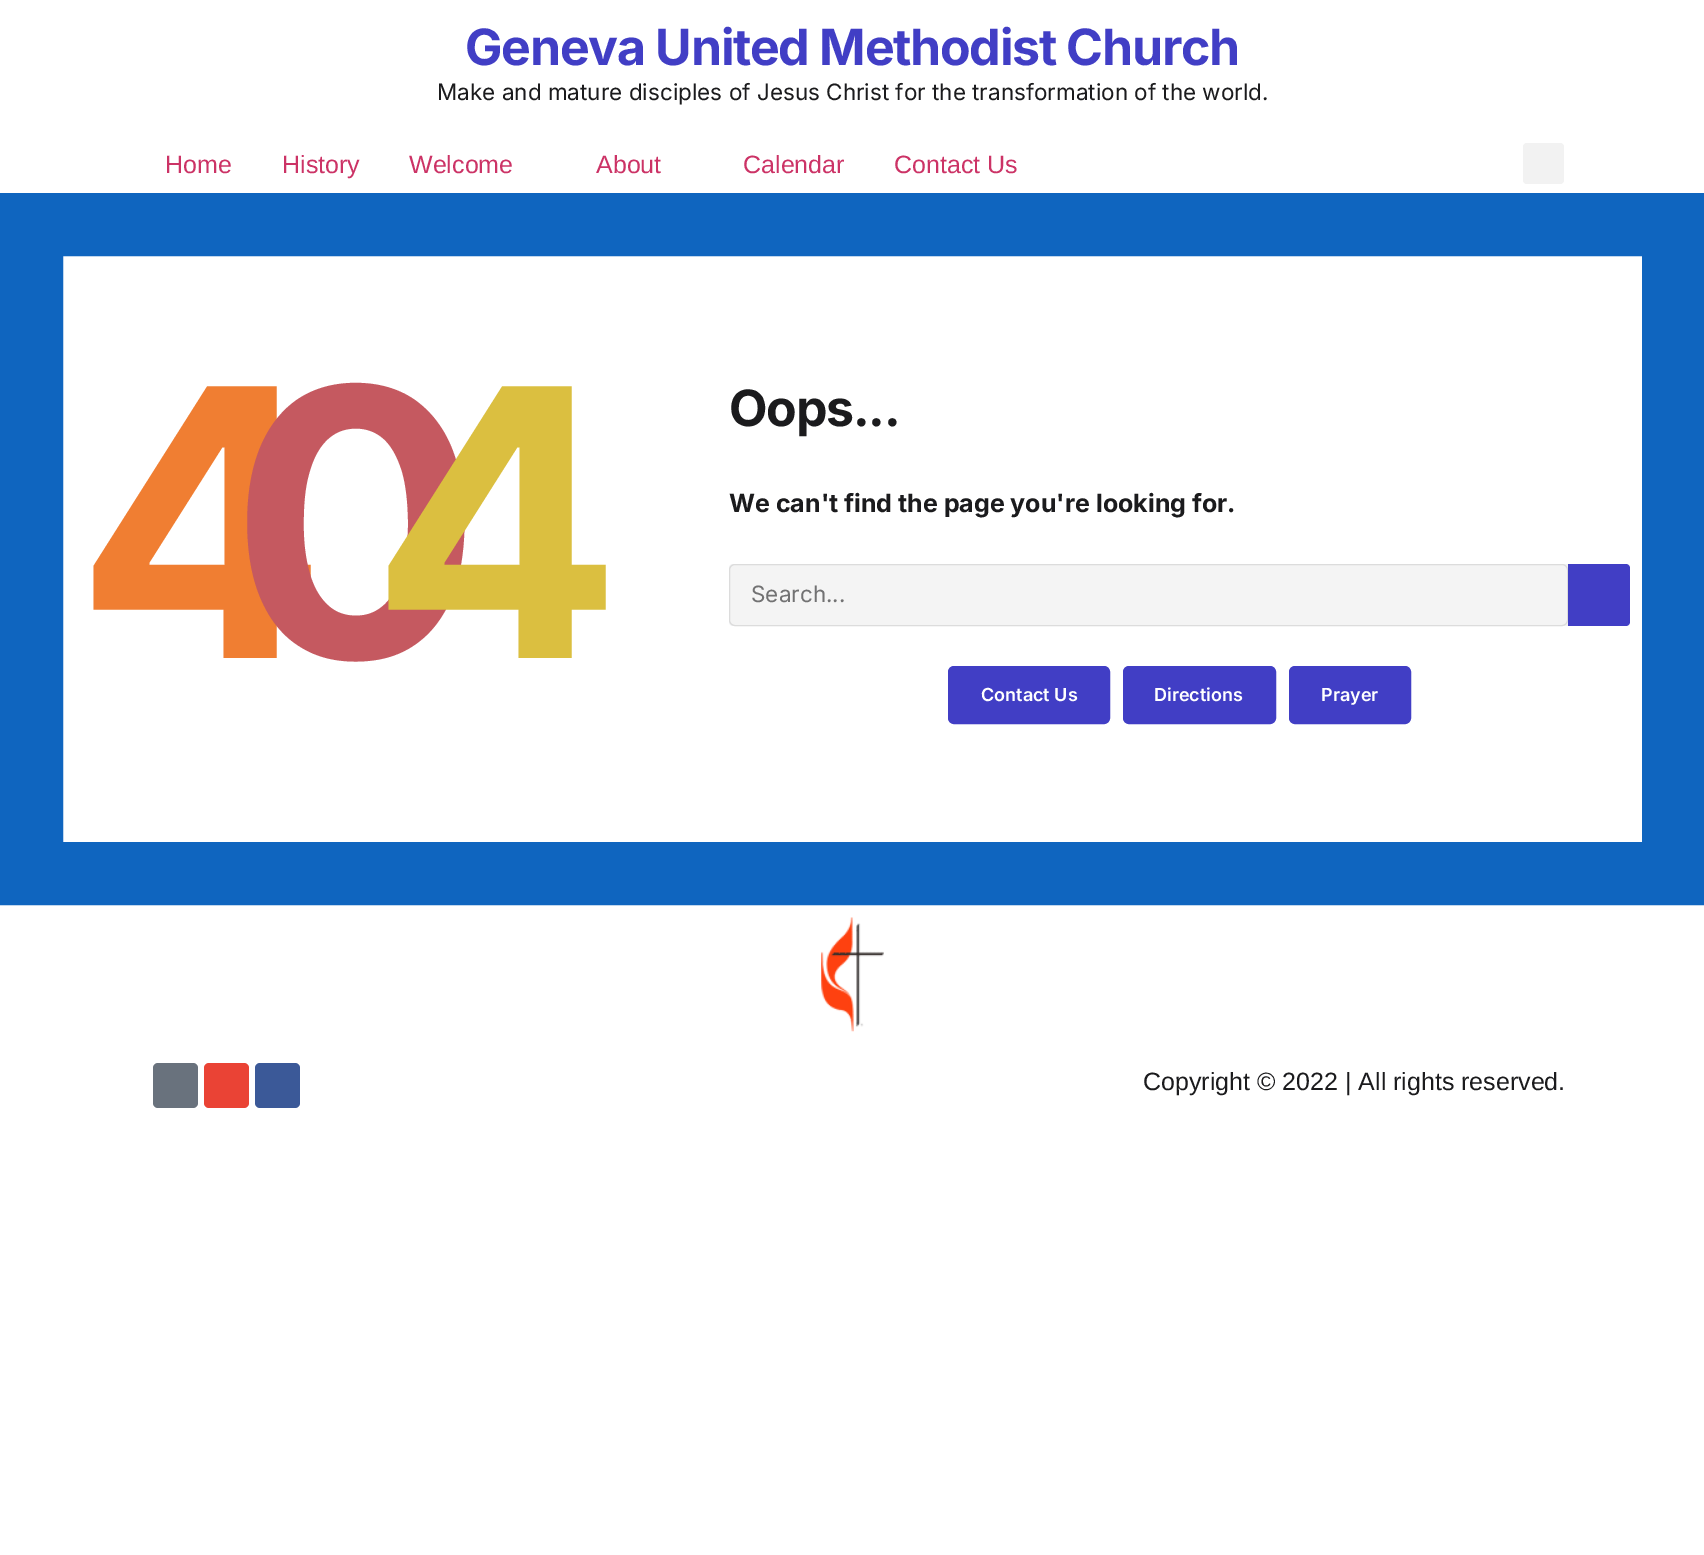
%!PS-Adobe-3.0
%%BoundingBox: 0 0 1704 1555
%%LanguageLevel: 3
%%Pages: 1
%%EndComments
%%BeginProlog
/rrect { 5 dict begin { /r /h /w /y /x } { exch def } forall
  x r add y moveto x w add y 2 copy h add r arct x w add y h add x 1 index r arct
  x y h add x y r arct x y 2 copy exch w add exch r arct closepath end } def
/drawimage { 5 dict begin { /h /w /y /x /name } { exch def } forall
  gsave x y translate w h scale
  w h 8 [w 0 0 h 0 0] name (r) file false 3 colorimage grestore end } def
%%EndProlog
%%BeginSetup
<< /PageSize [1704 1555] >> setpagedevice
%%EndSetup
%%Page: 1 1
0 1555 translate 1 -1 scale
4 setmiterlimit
1 setgray
0 0 1704 1555 rectfill
0.949 setgray
1523 143 41 41 4 rrect fill
0.059 0.396 0.749 setrgbcolor
63 setlinewidth
31.5 224.5 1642 649 rectstroke
0.945 0.949 0.953 setrgbcolor
729 564 901 62 4 rrect fill
0.957 setgray
729.5 564.5 838 61 5.5 rrect gsave fill grestore
0.863 setgray
1 setlinewidth
stroke
0.255 0.243 0.773 setrgbcolor
newpath 1568 564 moveto 1626 564 lineto 1628 564 1630 566 1630 568 curveto 1630 622 lineto 1630 624 1628 626 1626 626 curveto 1568 626 lineto closepath fill
949.5 667.5 159 55 4.5 rrect gsave fill grestore
3 setlinewidth
stroke
1124.5 667.5 150 55 4.5 rrect gsave fill grestore
stroke
1290.5 667.5 119 55 4.5 rrect gsave fill grestore
stroke
(images/1.raw) 821 917 63 115 drawimage
0.412 0.447 0.49 setrgbcolor
153 1063 45 45 5 rrect fill
0.918 0.263 0.208 setrgbcolor
204 1063 45 45 5 rrect fill
0.231 0.349 0.596 setrgbcolor
255 1063 45 45 5 rrect fill
/Inter-Bold [50 0 0 -50 0 0] selectfont
0.255 0.243 0.773 setrgbcolor
465 65 moveto -1.25 0 (Geneva United Methodist Church) ashow
/Inter-Regular [22.5 0 0 -22.5 0 0] selectfont
0.106 0.106 0.114 setrgbcolor
437 100 moveto (Make and mature disciples of Jesus Christ for the transformation of the world.) show
/LiberationSans-Regular [25 0 0 -25 0 0] selectfont
0.8 0.2 0.4 setrgbcolor
165 173 moveto (Home) show
282 173 moveto (History) show
409 173 moveto (Welcome) show
596 173 moveto (About) show
743 173 moveto (Calendar) show
894 173 moveto (Contact Us) show
/Inter-Bold [375 0 0 -375 0 0] selectfont
0.941 0.494 0.196 setrgbcolor
75 658 moveto -1.25 0 (4) ashow
0.773 0.349 0.376 setrgbcolor
230 658 moveto -1.25 0 (0) ashow
0.859 0.749 0.251 setrgbcolor
370 658 moveto -1.25 0 (4) ashow
/Inter-Bold [50 0 0 -50 0 0] selectfont
0.106 0.106 0.114 setrgbcolor
729 426 moveto -1.25 0 (Oops...) ashow
/Inter-Bold [25 0 0 -25 0 0] selectfont
729 512 moveto (We can't find the page you're looking for.) show
/Inter-Regular [22.5 0 0 -22.5 0 0] selectfont
0.447 0.447 0.451 setrgbcolor
751 602 moveto (Search...) show
/Inter-SemiBold [18 0 0 -18 0 0] selectfont
1 setgray
981 701 moveto (Contact Us) show
1154 701 moveto (Directions) show
1321 701 moveto (Prayer) show
/LiberationSans-Regular [25 0 0 -25 0 0] selectfont
0.106 0.106 0.114 setrgbcolor
1143 1090 moveto (Copyright © 2022 | All rights reserved.) show
showpage
%%EOF
